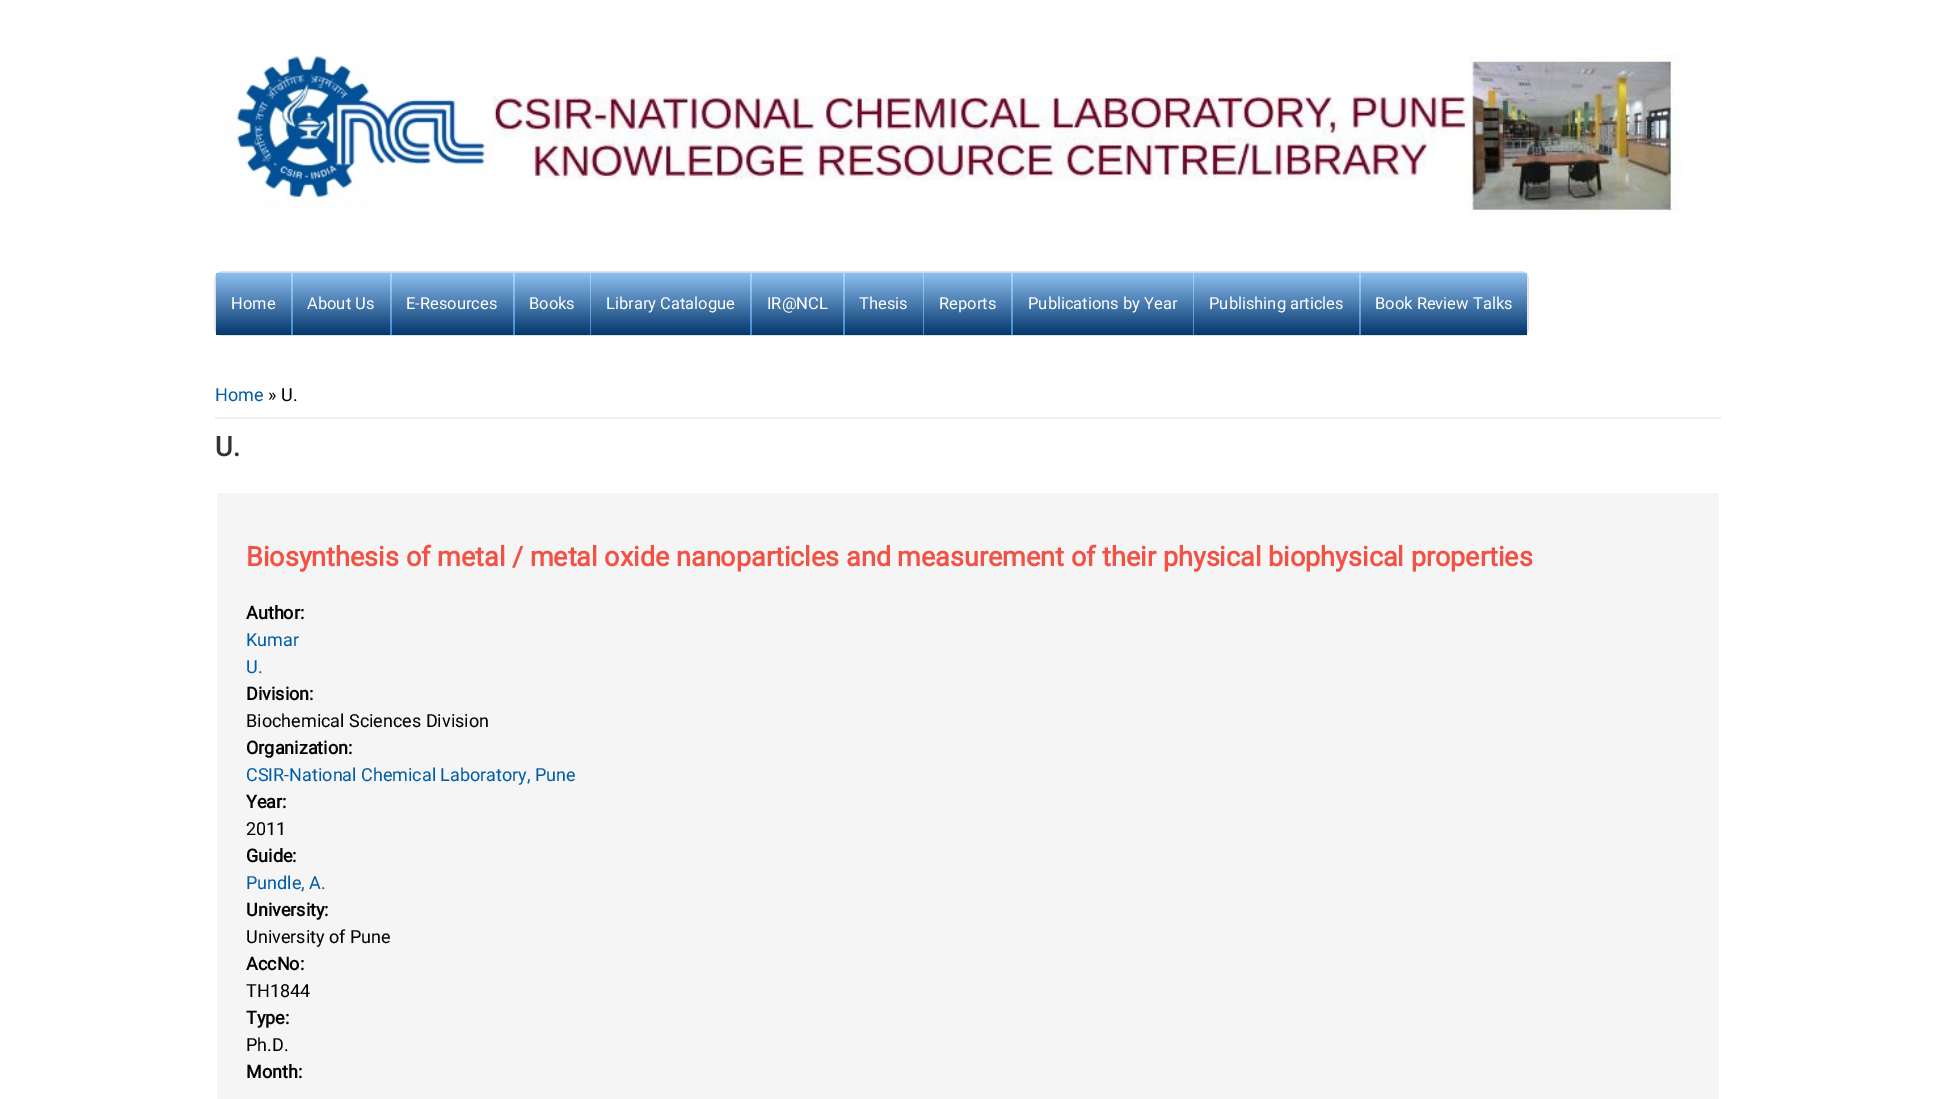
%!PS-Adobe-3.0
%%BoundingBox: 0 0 1935 1099
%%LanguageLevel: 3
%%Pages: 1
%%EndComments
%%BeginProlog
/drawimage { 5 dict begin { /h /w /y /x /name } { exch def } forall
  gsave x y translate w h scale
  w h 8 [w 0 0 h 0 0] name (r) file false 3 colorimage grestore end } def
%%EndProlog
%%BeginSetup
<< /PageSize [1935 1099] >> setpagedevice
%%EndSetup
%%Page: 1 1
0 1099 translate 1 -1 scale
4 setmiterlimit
1 setgray
0 0 1935 1099 rectfill
(images/1.raw) 221 54 1462 160 drawimage
0.78 0.855 0.929 setrgbcolor
1.5 setlinewidth
newpath 217 274 moveto 218.5 273 220 272 222 272 curveto 1521 272 lineto 1523 272 1524.5 273 1526 274 curveto stroke
0.875 setgray
newpath 1526 274 moveto 1527 275.5 1528 277 1528 279 curveto 1528 328.5 lineto 1528 330.5 1527 332 1526 333.5 curveto 1524.5 334.5 1523 335 1521 335 curveto 222 335 lineto 220 335 218.5 334.5 217 333.5 curveto 216 332 215 330.5 215 328.5 curveto 215 279 lineto 215 277 216 275.5 217 274 curveto stroke
gsave newpath 291 273 moveto 293 273 lineto 293 335 lineto 291 335 lineto closepath clip newpath
<< /ShadingType 2 /ColorSpace /DeviceRGB /Coords [254 273 254 335] /Extend [true true] /Function << /FunctionType 2 /Domain [0 1] /C0 [0.69 0.839 0.992] /C1 [0.255 0.533 0.824] /N 1 >> >> shfill grestore
gsave newpath 216 273 moveto 291 273 lineto 291 335 lineto 216 335 lineto closepath clip newpath
<< /ShadingType 2 /ColorSpace /DeviceRGB /Coords [254 273 254 335] /Extend [true true] /Function << /FunctionType 2 /Domain [0 1] /C0 [0.553 0.745 0.941] /C1 [0.016 0.216 0.424] /N 1 >> >> shfill grestore
gsave newpath 390 273 moveto 392 273 lineto 392 335 lineto 390 335 lineto closepath clip newpath
<< /ShadingType 2 /ColorSpace /DeviceRGB /Coords [342 273 342 335] /Extend [true true] /Function << /FunctionType 2 /Domain [0 1] /C0 [0.69 0.839 0.992] /C1 [0.255 0.533 0.824] /N 1 >> >> shfill grestore
gsave newpath 293 273 moveto 390 273 lineto 390 335 lineto 293 335 lineto closepath clip newpath
<< /ShadingType 2 /ColorSpace /DeviceRGB /Coords [341 273 341 335] /Extend [true true] /Function << /FunctionType 2 /Domain [0 1] /C0 [0.553 0.745 0.941] /C1 [0.016 0.216 0.424] /N 1 >> >> shfill grestore
gsave newpath 513 273 moveto 515 273 lineto 515 335 lineto 513 335 lineto closepath clip newpath
<< /ShadingType 2 /ColorSpace /DeviceRGB /Coords [453 273 453 335] /Extend [true true] /Function << /FunctionType 2 /Domain [0 1] /C0 [0.69 0.839 0.992] /C1 [0.255 0.533 0.824] /N 1 >> >> shfill grestore
gsave newpath 392 273 moveto 513 273 lineto 513 335 lineto 392 335 lineto closepath clip newpath
<< /ShadingType 2 /ColorSpace /DeviceRGB /Coords [452 273 452 335] /Extend [true true] /Function << /FunctionType 2 /Domain [0 1] /C0 [0.553 0.745 0.941] /C1 [0.016 0.216 0.424] /N 1 >> >> shfill grestore
gsave newpath 590 273 moveto 591 273 lineto 591 335 lineto 590 335 lineto closepath clip newpath
<< /ShadingType 2 /ColorSpace /DeviceRGB /Coords [553 273 553 335] /Extend [true true] /Function << /FunctionType 2 /Domain [0 1] /C0 [0.69 0.839 0.992] /C1 [0.255 0.533 0.824] /N 1 >> >> shfill grestore
gsave newpath 515 273 moveto 590 273 lineto 590 335 lineto 515 335 lineto closepath clip newpath
<< /ShadingType 2 /ColorSpace /DeviceRGB /Coords [552 273 552 335] /Extend [true true] /Function << /FunctionType 2 /Domain [0 1] /C0 [0.553 0.745 0.941] /C1 [0.016 0.216 0.424] /N 1 >> >> shfill grestore
gsave newpath 750 273 moveto 752 273 lineto 752 335 lineto 750 335 lineto closepath clip newpath
<< /ShadingType 2 /ColorSpace /DeviceRGB /Coords [671 273 671 335] /Extend [true true] /Function << /FunctionType 2 /Domain [0 1] /C0 [0.69 0.839 0.992] /C1 [0.255 0.533 0.824] /N 1 >> >> shfill grestore
gsave newpath 591 273 moveto 750 273 lineto 750 335 lineto 591 335 lineto closepath clip newpath
<< /ShadingType 2 /ColorSpace /DeviceRGB /Coords [671 273 671 335] /Extend [true true] /Function << /FunctionType 2 /Domain [0 1] /C0 [0.553 0.745 0.941] /C1 [0.016 0.216 0.424] /N 1 >> >> shfill grestore
gsave newpath 843 273 moveto 845 273 lineto 845 335 lineto 843 335 lineto closepath clip newpath
<< /ShadingType 2 /ColorSpace /DeviceRGB /Coords [798 273 798 335] /Extend [true true] /Function << /FunctionType 2 /Domain [0 1] /C0 [0.69 0.839 0.992] /C1 [0.255 0.533 0.824] /N 1 >> >> shfill grestore
gsave newpath 752 273 moveto 843 273 lineto 843 335 lineto 752 335 lineto closepath clip newpath
<< /ShadingType 2 /ColorSpace /DeviceRGB /Coords [797 273 797 335] /Extend [true true] /Function << /FunctionType 2 /Domain [0 1] /C0 [0.553 0.745 0.941] /C1 [0.016 0.216 0.424] /N 1 >> >> shfill grestore
gsave newpath 923 273 moveto 924 273 lineto 924 335 lineto 923 335 lineto closepath clip newpath
<< /ShadingType 2 /ColorSpace /DeviceRGB /Coords [884 273 884 335] /Extend [true true] /Function << /FunctionType 2 /Domain [0 1] /C0 [0.69 0.839 0.992] /C1 [0.255 0.533 0.824] /N 1 >> >> shfill grestore
gsave newpath 845 273 moveto 923 273 lineto 923 335 lineto 845 335 lineto closepath clip newpath
<< /ShadingType 2 /ColorSpace /DeviceRGB /Coords [884 273 884 335] /Extend [true true] /Function << /FunctionType 2 /Domain [0 1] /C0 [0.553 0.745 0.941] /C1 [0.016 0.216 0.424] /N 1 >> >> shfill grestore
gsave newpath 1011 273 moveto 1013 273 lineto 1013 335 lineto 1011 335 lineto closepath clip newpath
<< /ShadingType 2 /ColorSpace /DeviceRGB /Coords [968 273 968 335] /Extend [true true] /Function << /FunctionType 2 /Domain [0 1] /C0 [0.69 0.839 0.992] /C1 [0.255 0.533 0.824] /N 1 >> >> shfill grestore
gsave newpath 924 273 moveto 1011 273 lineto 1011 335 lineto 924 335 lineto closepath clip newpath
<< /ShadingType 2 /ColorSpace /DeviceRGB /Coords [968 273 968 335] /Extend [true true] /Function << /FunctionType 2 /Domain [0 1] /C0 [0.553 0.745 0.941] /C1 [0.016 0.216 0.424] /N 1 >> >> shfill grestore
gsave newpath 1193 273 moveto 1194 273 lineto 1194 335 lineto 1193 335 lineto closepath clip newpath
<< /ShadingType 2 /ColorSpace /DeviceRGB /Coords [1103 273 1103 335] /Extend [true true] /Function << /FunctionType 2 /Domain [0 1] /C0 [0.69 0.839 0.992] /C1 [0.255 0.533 0.824] /N 1 >> >> shfill grestore
gsave newpath 1013 273 moveto 1193 273 lineto 1193 335 lineto 1013 335 lineto closepath clip newpath
<< /ShadingType 2 /ColorSpace /DeviceRGB /Coords [1103 273 1103 335] /Extend [true true] /Function << /FunctionType 2 /Domain [0 1] /C0 [0.553 0.745 0.941] /C1 [0.016 0.216 0.424] /N 1 >> >> shfill grestore
gsave newpath 1359 273 moveto 1361 273 lineto 1361 335 lineto 1359 335 lineto closepath clip newpath
<< /ShadingType 2 /ColorSpace /DeviceRGB /Coords [1277 273 1277 335] /Extend [true true] /Function << /FunctionType 2 /Domain [0 1] /C0 [0.69 0.839 0.992] /C1 [0.255 0.533 0.824] /N 1 >> >> shfill grestore
gsave newpath 1194 273 moveto 1359 273 lineto 1359 335 lineto 1194 335 lineto closepath clip newpath
<< /ShadingType 2 /ColorSpace /DeviceRGB /Coords [1277 273 1277 335] /Extend [true true] /Function << /FunctionType 2 /Domain [0 1] /C0 [0.553 0.745 0.941] /C1 [0.016 0.216 0.424] /N 1 >> >> shfill grestore
gsave newpath 1361 273 moveto 1527 273 lineto 1527 335 lineto 1361 335 lineto closepath clip newpath
<< /ShadingType 2 /ColorSpace /DeviceRGB /Coords [1444 273 1444 335] /Extend [true true] /Function << /FunctionType 2 /Domain [0 1] /C0 [0.553 0.745 0.941] /C1 [0.016 0.216 0.424] /N 1 >> >> shfill grestore
0.933 setgray
215 417 1506 2 rectfill
0.961 setgray
217 493 1502 606 rectfill
/Roboto-Regular [16.5 0 0 -16.5 0 0] selectfont
1 setgray
231 309 moveto (Home) show
307 309 moveto (About Us) show
406 309 moveto (E-Resources) show
529 309 moveto (Books) show
606 309 moveto (Library Catalogue) show
767 309 moveto (IR@NCL) show
859 309 moveto (Thesis) show
939 309 moveto (Reports) show
1028 309 moveto (Publications by Year) show
1209 309 moveto (Publishing articles) show
1375 309 moveto (Book Review Talks) show
/Roboto-Regular [18 0 0 -18 0 0] selectfont
0 0.361 0.659 setrgbcolor
215 401 moveto (Home) show
0 setgray
268 401 moveto (» U.) show
/Roboto-Bold [27 0 0 -27 0 0] selectfont
0.2 setgray
215 456 moveto (U.) show
0.957 0.318 0.271 setrgbcolor
246 566 moveto (Biosynthesis of metal / metal oxide nanoparticles and measurement of their physical biophysical properties) show
/Roboto-Bold [18 0 0 -18 0 0] selectfont
0 setgray
246 619 moveto (Author:) show
/Roboto-Regular [18 0 0 -18 0 0] selectfont
0 0.361 0.659 setrgbcolor
246 646 moveto (Kumar) show
246 673 moveto (U.) show
/Roboto-Bold [18 0 0 -18 0 0] selectfont
0 setgray
246 700 moveto (Division:) show
/Roboto-Regular [18 0 0 -18 0 0] selectfont
246 727 moveto (Biochemical Sciences Division) show
/Roboto-Bold [18 0 0 -18 0 0] selectfont
246 754 moveto (Organization:) show
/Roboto-Regular [18 0 0 -18 0 0] selectfont
0 0.361 0.659 setrgbcolor
246 781 moveto (CSIR-National Chemical Laboratory, Pune) show
/Roboto-Bold [18 0 0 -18 0 0] selectfont
0 setgray
246 808 moveto (Year:) show
/Roboto-Regular [18 0 0 -18 0 0] selectfont
246 835 moveto (2011) show
/Roboto-Bold [18 0 0 -18 0 0] selectfont
246 862 moveto (Guide:) show
/Roboto-Regular [18 0 0 -18 0 0] selectfont
0 0.361 0.659 setrgbcolor
246 889 moveto (Pundle, A.) show
/Roboto-Bold [18 0 0 -18 0 0] selectfont
0 setgray
246 916 moveto (University:) show
/Roboto-Regular [18 0 0 -18 0 0] selectfont
246 943 moveto (University of Pune) show
/Roboto-Bold [18 0 0 -18 0 0] selectfont
246 970 moveto (AccNo:) show
/Roboto-Regular [18 0 0 -18 0 0] selectfont
246 997 moveto (TH1844) show
/Roboto-Bold [18 0 0 -18 0 0] selectfont
246 1024 moveto (Type:) show
/Roboto-Regular [18 0 0 -18 0 0] selectfont
246 1051 moveto (Ph.D.) show
/Roboto-Bold [18 0 0 -18 0 0] selectfont
246 1078 moveto (Month:) show
showpage
%%EOF
